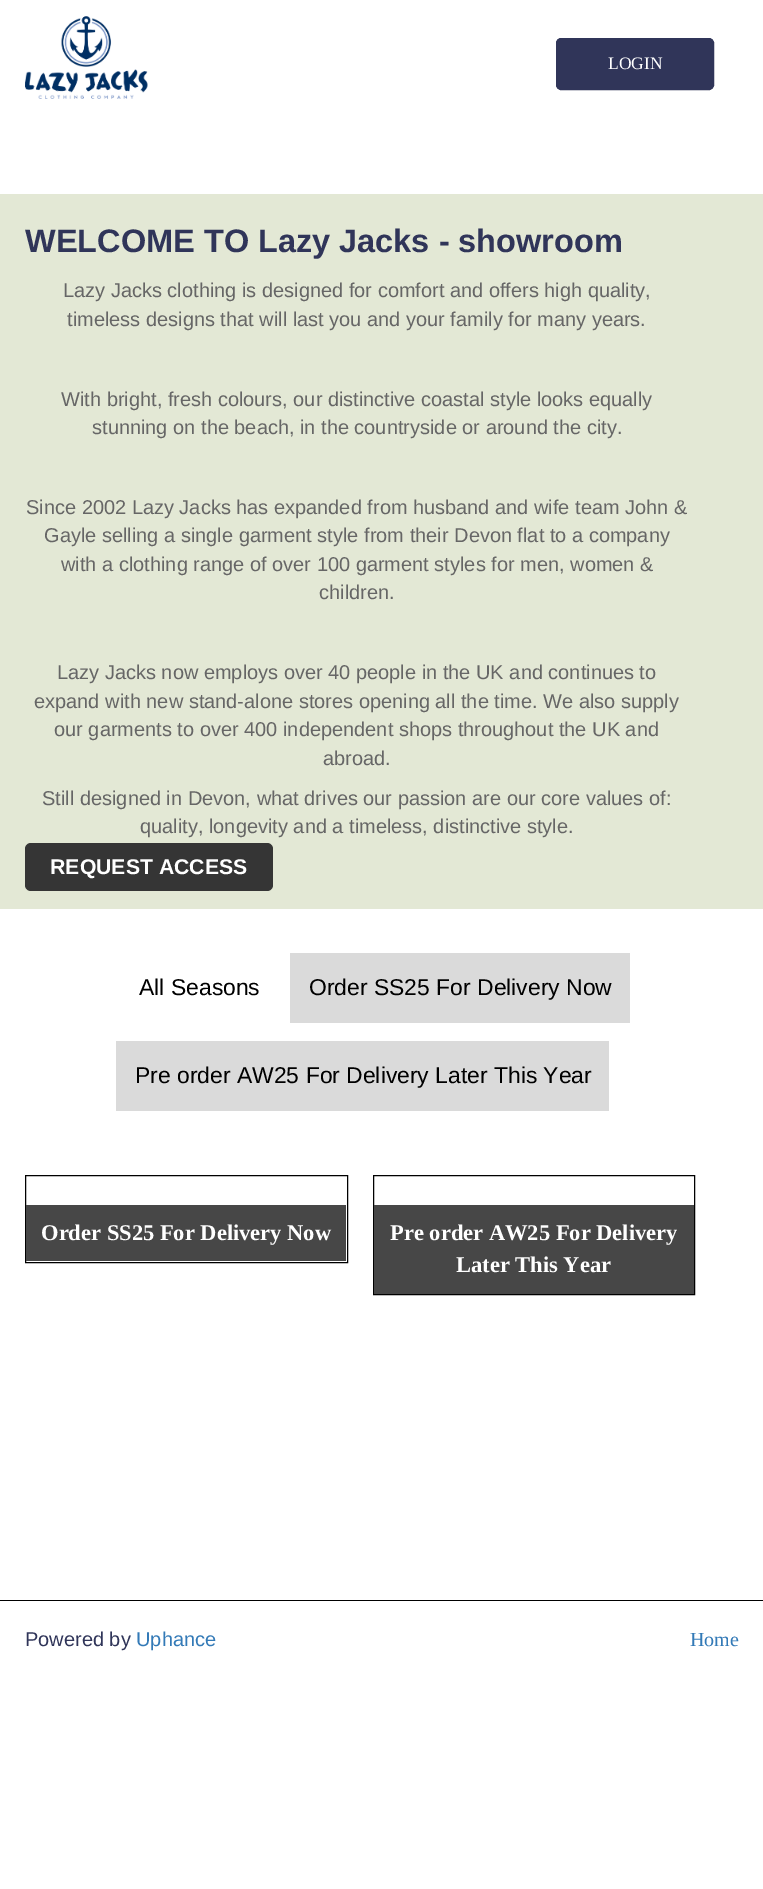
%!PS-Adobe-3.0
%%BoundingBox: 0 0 763 1889
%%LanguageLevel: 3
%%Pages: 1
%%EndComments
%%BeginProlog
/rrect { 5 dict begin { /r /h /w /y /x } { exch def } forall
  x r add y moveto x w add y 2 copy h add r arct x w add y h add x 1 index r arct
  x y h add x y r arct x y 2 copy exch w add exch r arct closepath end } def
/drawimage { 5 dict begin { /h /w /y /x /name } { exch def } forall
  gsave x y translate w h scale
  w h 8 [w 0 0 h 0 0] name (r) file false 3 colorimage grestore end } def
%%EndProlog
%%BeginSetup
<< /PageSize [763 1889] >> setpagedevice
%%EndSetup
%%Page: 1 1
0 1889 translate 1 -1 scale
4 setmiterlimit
1 setgray
0 0 763 1889 rectfill
(images/1.raw) 25 16 123 83 drawimage
0.188 0.208 0.349 setrgbcolor
556.5 38.5 157 51 4.5 rrect gsave fill grestore
stroke
0.89 0.91 0.835 setrgbcolor
0 194 763 715 rectfill
0.208 setgray
25 843 248 48 6 rrect fill
0.855 setgray
290 953 340 70 rectfill
116 1041 493 70 rectfill
0 setgray
25.5 1175.5 322 87 rectstroke
0.278 setgray
26 1205 320 56 rectfill
0 setgray
373.5 1175.5 321 119 rectstroke
0.278 setgray
374 1205 320 89 rectfill
0 setgray
0 1600 763 1 rectfill
/LiberationSerif-Regular [17.5 0 0 -17.5 0 0] selectfont
1 setgray
608 69 moveto (LOGIN) show
/LiberationSans-Bold [32.5 0 0 -32.5 0 0] selectfont
0.188 0.208 0.349 setrgbcolor
25 252 moveto (WELCOME TO Lazy Jacks - showroom) show
/LiberationSans-Regular [20 0 0 -20 0 0] selectfont
0.4 setgray
63 297 moveto (Lazy Jacks clothing is designed for comfort and offers high quality,) show
67 326 moveto (timeless designs that will last you and your family for many years.) show
61 406 moveto (With bright, fresh colours, our distinctive coastal style looks equally) show
92 434 moveto (stunning on the beach, in the countryside or around the city.) show
26 514 moveto (Since 2002 Lazy Jacks has expanded from husband and wife team John &) show
44 542 moveto (Gayle selling a single garment style from their Devon flat to a company) show
61 571 moveto (with a clothing range of over 100 garment styles for men, women &) show
319 599 moveto (children.) show
57 679 moveto (Lazy Jacks now employs over 40 people in the UK and continues to) show
34 708 moveto (expand with new stand-alone stores opening all the time. We also supply) show
54 736 moveto (our garments to over 400 independent shops throughout the UK and) show
323 765 moveto (abroad.) show
42 805 moveto (Still designed in Devon, what drives our passion are our core values of:) show
140 833 moveto (quality, longevity and a timeless, distinctive style.) show
/LiberationSans-Bold [21.25 0 0 -21.25 0 0] selectfont
1 setgray
50 874 moveto (REQUEST ACCESS) show
/LiberationSans-Regular [22.9 0 0 -22.9 0 0] selectfont
0 setgray
139 995 moveto (All Seasons) show
309 995 moveto (Order SS25 For Delivery Now) show
135 1083 moveto (Pre order AW25 For Delivery Later This Year) show
/LiberationSerif-Bold [22.5 0 0 -22.5 0 0] selectfont
1 setgray
41 1240 moveto (Order SS25 For Delivery Now) show
390 1240 moveto (Pre order AW25 For Delivery) show
456 1272 moveto (Later This Year) show
/LiberationSans-Regular [20 0 0 -20 0 0] selectfont
0.188 0.208 0.349 setrgbcolor
25 1646 moveto (Powered by) show
0.2 0.478 0.718 setrgbcolor
136 1646 moveto (Uphance) show
/LiberationSerif-Regular [20 0 0 -20 0 0] selectfont
690 1646 moveto (Home) show
showpage
%%EOF
